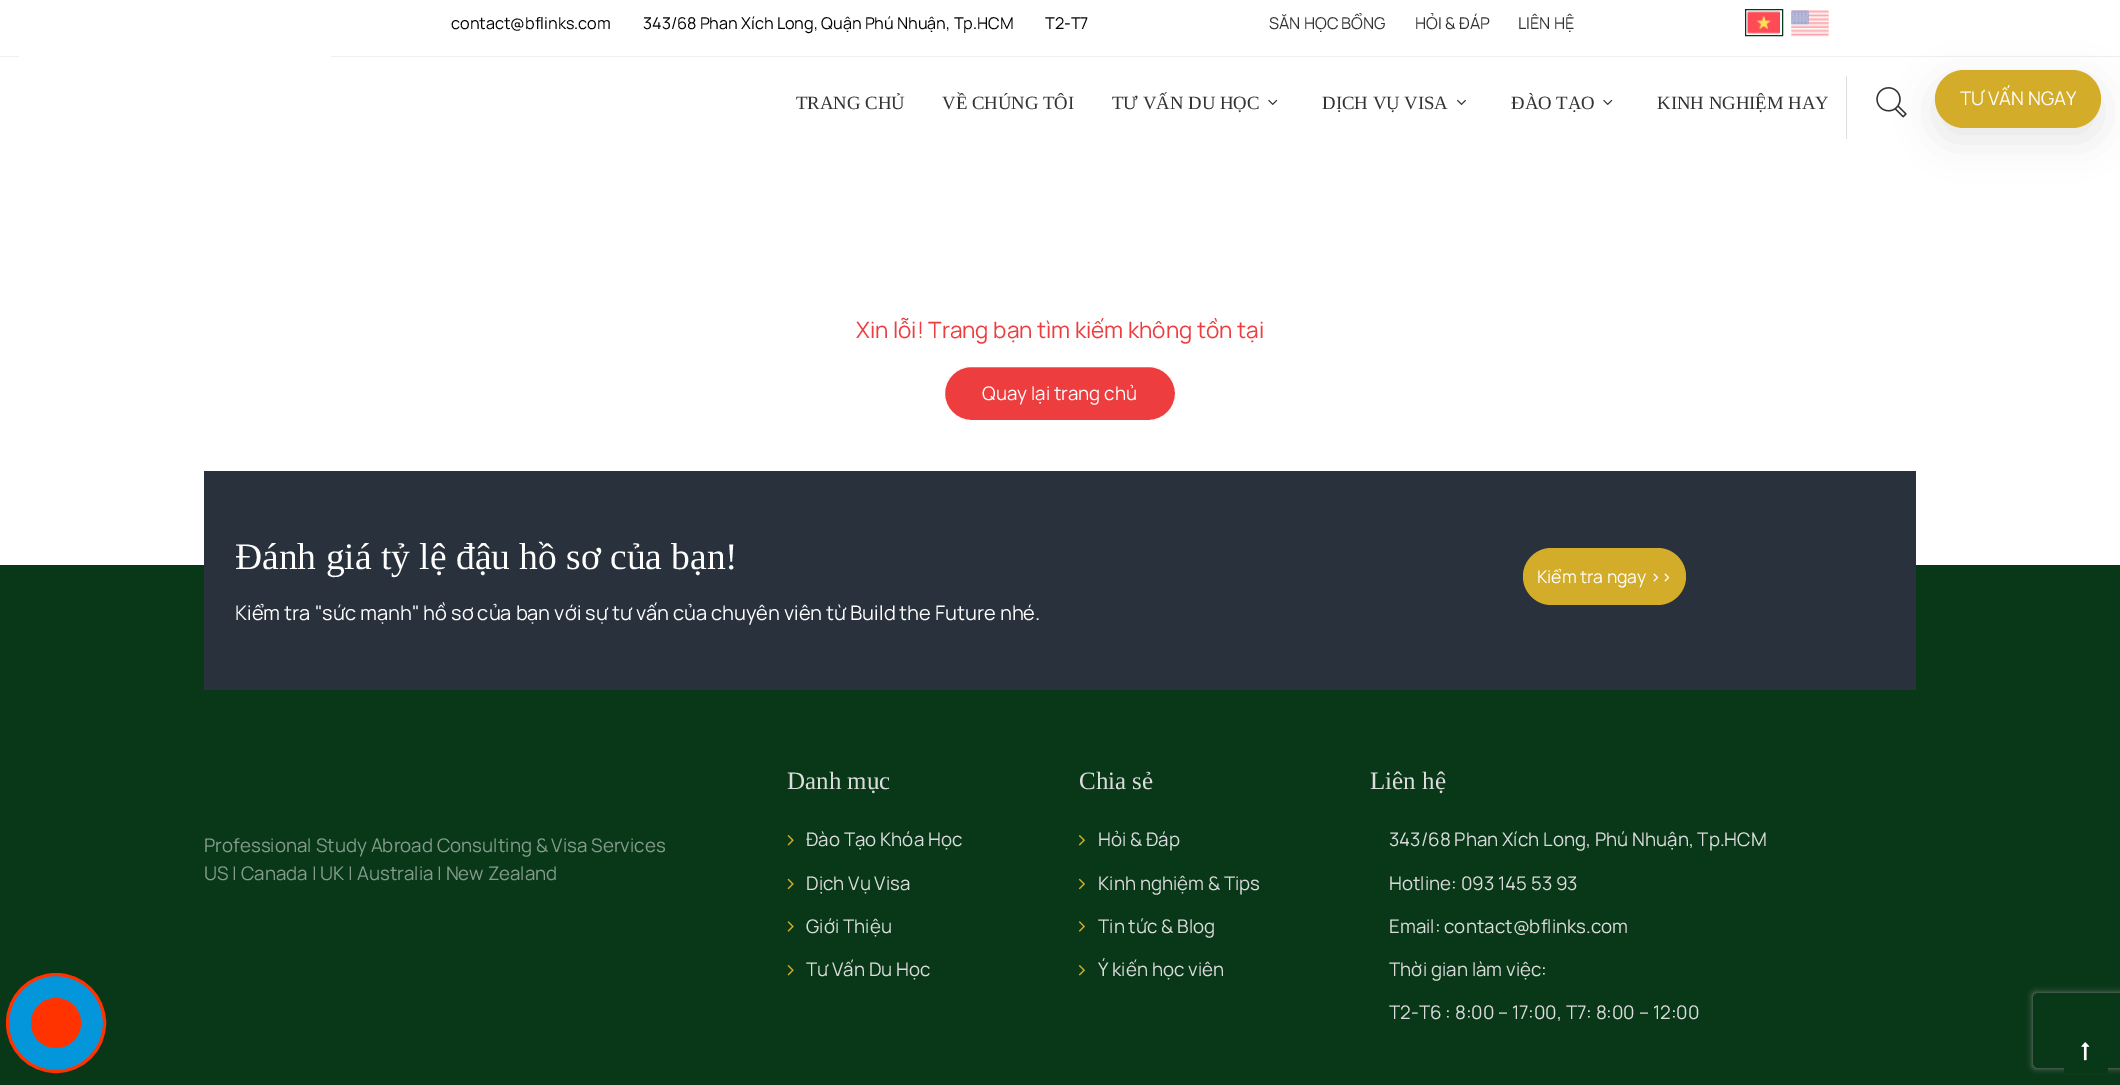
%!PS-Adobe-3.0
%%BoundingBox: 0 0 2120 1085
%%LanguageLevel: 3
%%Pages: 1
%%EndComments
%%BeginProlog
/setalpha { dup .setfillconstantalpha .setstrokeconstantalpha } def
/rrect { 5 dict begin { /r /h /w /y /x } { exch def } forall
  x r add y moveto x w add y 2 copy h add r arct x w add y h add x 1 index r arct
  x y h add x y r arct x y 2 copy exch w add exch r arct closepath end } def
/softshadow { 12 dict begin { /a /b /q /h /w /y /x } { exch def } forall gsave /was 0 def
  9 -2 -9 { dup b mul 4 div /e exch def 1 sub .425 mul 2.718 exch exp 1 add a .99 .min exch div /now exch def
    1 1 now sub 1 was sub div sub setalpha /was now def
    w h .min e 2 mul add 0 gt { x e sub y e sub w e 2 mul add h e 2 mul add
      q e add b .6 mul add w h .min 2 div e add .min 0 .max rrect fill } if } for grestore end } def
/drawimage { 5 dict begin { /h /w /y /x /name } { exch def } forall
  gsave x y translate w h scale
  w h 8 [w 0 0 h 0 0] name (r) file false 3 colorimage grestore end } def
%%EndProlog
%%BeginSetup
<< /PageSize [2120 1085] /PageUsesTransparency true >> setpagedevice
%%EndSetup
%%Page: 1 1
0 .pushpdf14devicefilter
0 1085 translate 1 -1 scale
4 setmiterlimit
1 setgray
0 0 2120 1085 rectfill
0.035 0.22 0.098 setrgbcolor
0 565 2120 520 rectfill
0.016 0.588 0.855 setrgbcolor
newpath 56 1023 48.5 0 360 arc closepath gsave fill grestore
1 0.2 0 setrgbcolor
3 setlinewidth
stroke
newpath 56 1023 25 0 360 arc closepath fill
0.937 setgray
0 56 2120 1 rectfill
1 setgray
19 56 312 1 rectfill
0.035 0.22 0.098 setrgbcolor
1 setlinewidth
1745.5 9.5 37 26 rectstroke
(images/1.raw) 1747 11 33 23 drawimage
(images/2.raw) 1791 10 38 27 drawimage
(images/3.raw) 1268 99 10 6 drawimage
(images/4.raw) 1457 99 9 6 drawimage
(images/3.raw) 1603 99 10 6 drawimage
0.871 setgray
1846 76 1 63 rectfill
(images/5.raw) 1876 87 31 31 drawimage
0 setgray
1935 83 166 57 28.5 19 0.1 softshadow
0.827 0.678 0.161 setrgbcolor
1935 70 166 58 29 rrect fill
0.929 0.239 0.247 setrgbcolor
944.5 366.5 231 54 27 rrect gsave fill grestore
1 setgray
stroke
0.161 0.192 0.235 setrgbcolor
204 471 1712 219 rectfill
0.827 0.678 0.161 setrgbcolor
1523 548 163 57 28.5 rrect fill
(images/6.raw) 787 835 7 11 drawimage
(images/7.raw) 787 878 7 12 drawimage
(images/8.raw) 787 921 7 11 drawimage
(images/6.raw) 787 965 7 11 drawimage
(images/9.raw) 1078 835 7 11 drawimage
(images/10.raw) 1078 878 7 12 drawimage
(images/11.raw) 1078 921 7 11 drawimage
(images/9.raw) 1078 965 7 11 drawimage
gsave
newpath 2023 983 moveto 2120 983 lineto 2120 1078 lineto 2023 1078 lineto closepath 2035.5 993 moveto 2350.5 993 lineto 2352 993 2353 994 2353 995.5 curveto 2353 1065.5 lineto 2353 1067 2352 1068 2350.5 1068 curveto 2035.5 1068 lineto 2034 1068 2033 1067 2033 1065.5 curveto 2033 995.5 lineto 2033 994 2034 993 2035.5 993 curveto closepath eoclip newpath
0.502 setgray
2033 993 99 75 2.5 3 1 softshadow
grestore
0.035 0.22 0.098 setrgbcolor
2064 1067 44 6 rectfill
(images/12.raw) 2081 1042 9 19 drawimage
/Manrope-Regular [16.25 0 0 -16.25 0 0] selectfont
0 setgray
451 29 moveto (contact@bflinks.com) show
643 29 moveto (343/68 Phan Xích Long, Quận Phú Nhuận, Tp.HCM) show
1045 29 moveto (T2-T7) show
0.2 setgray
1269 29 moveto (SĂN HỌC BỔNG) show
1415 29 moveto (HỎI & ĐÁP) show
1518 29 moveto (LIÊN HỆ) show
/LiberationSerif-Regular [18.75 0 0 -18.75 0 0] selectfont
796 109 moveto (TRANG CHỦ) show
942 109 moveto (VỀ CHÚNG TÔI) show
1112 109 moveto (TƯ VẤN DU HỌC) show
1322 109 moveto (DỊCH VỤ VISA) show
1511 109 moveto (ĐÀO TẠO) show
1657 109 moveto (KINH NGHIỆM HAY) show
/Manrope-Regular [18.75 0 0 -18.75 0 0] selectfont
1 setgray
1960 105 moveto (TƯ VẤN NGAY) show
/Manrope-Regular [22.5 0 0 -22.5 0 0] selectfont
0.929 0.239 0.247 setrgbcolor
856 338 moveto (Xin lỗi! Trang bạn tìm kiếm không tồn tại) show
/Manrope-Regular [18.75 0 0 -18.75 0 0] selectfont
1 setgray
982 400 moveto (Quay lại trang chủ) show
/LiberationSerif-Regular [37.5 0 0 -37.5 0 0] selectfont
235 569 moveto (Đánh giá tỷ lệ đậu hồ sơ của bạn!) show
/Manrope-Regular [20 0 0 -20 0 0] selectfont
235 620 moveto (Kiểm tra "sức mạnh" hồ sơ của bạn với sự tư vấn của chuyên viên từ Build the Future nhé.) show
/Manrope-Regular [17.5 0 0 -17.5 0 0] selectfont
1537 583 moveto (Kiểm tra ngay >>) show
/Manrope-Regular [18.75 0 0 -18.75 0 0] selectfont
0.518 0.612 0.549 setrgbcolor
204 852 moveto (Professional Study Abroad Consulting & Visa Services) show
204 880 moveto (US | Canada | UK | Australia | New Zealand) show
/LiberationSerif-Regular [25 0 0 -25 0 0] selectfont
0.863 setgray
787 789 moveto (Danh mục) show
/Manrope-Regular [18.75 0 0 -18.75 0 0] selectfont
806 846 moveto (Đào Tạo Khóa Học) show
806 890 moveto (Dịch Vụ Visa) show
806 933 moveto (Giới Thiệu) show
806 976 moveto (Tư Vấn Du Học) show
/LiberationSerif-Regular [25 0 0 -25 0 0] selectfont
1079 789 moveto (Chia sẻ) show
/Manrope-Regular [18.75 0 0 -18.75 0 0] selectfont
1098 846 moveto (Hỏi & Đáp) show
1098 890 moveto (Kinh nghiệm & Tips) show
1098 933 moveto (Tin tức & Blog) show
1098 976 moveto (Ý kiến học viên) show
/LiberationSerif-Regular [25 0 0 -25 0 0] selectfont
1370 789 moveto (Liên hệ) show
/Manrope-Regular [18.75 0 0 -18.75 0 0] selectfont
1389 846 moveto (343/68 Phan Xích Long, Phú Nhuận, Tp.HCM) show
1389 890 moveto (Hotline: 093 145 53 93) show
1389 933 moveto (Email: contact@bflinks.com) show
1389 976 moveto (Thời gian làm việc:) show
1389 1019 moveto (T2-T6 : 8:00 – 17:00, T7: 8:00 – 12:00) show
.poppdf14devicefilter showpage
%%EOF
